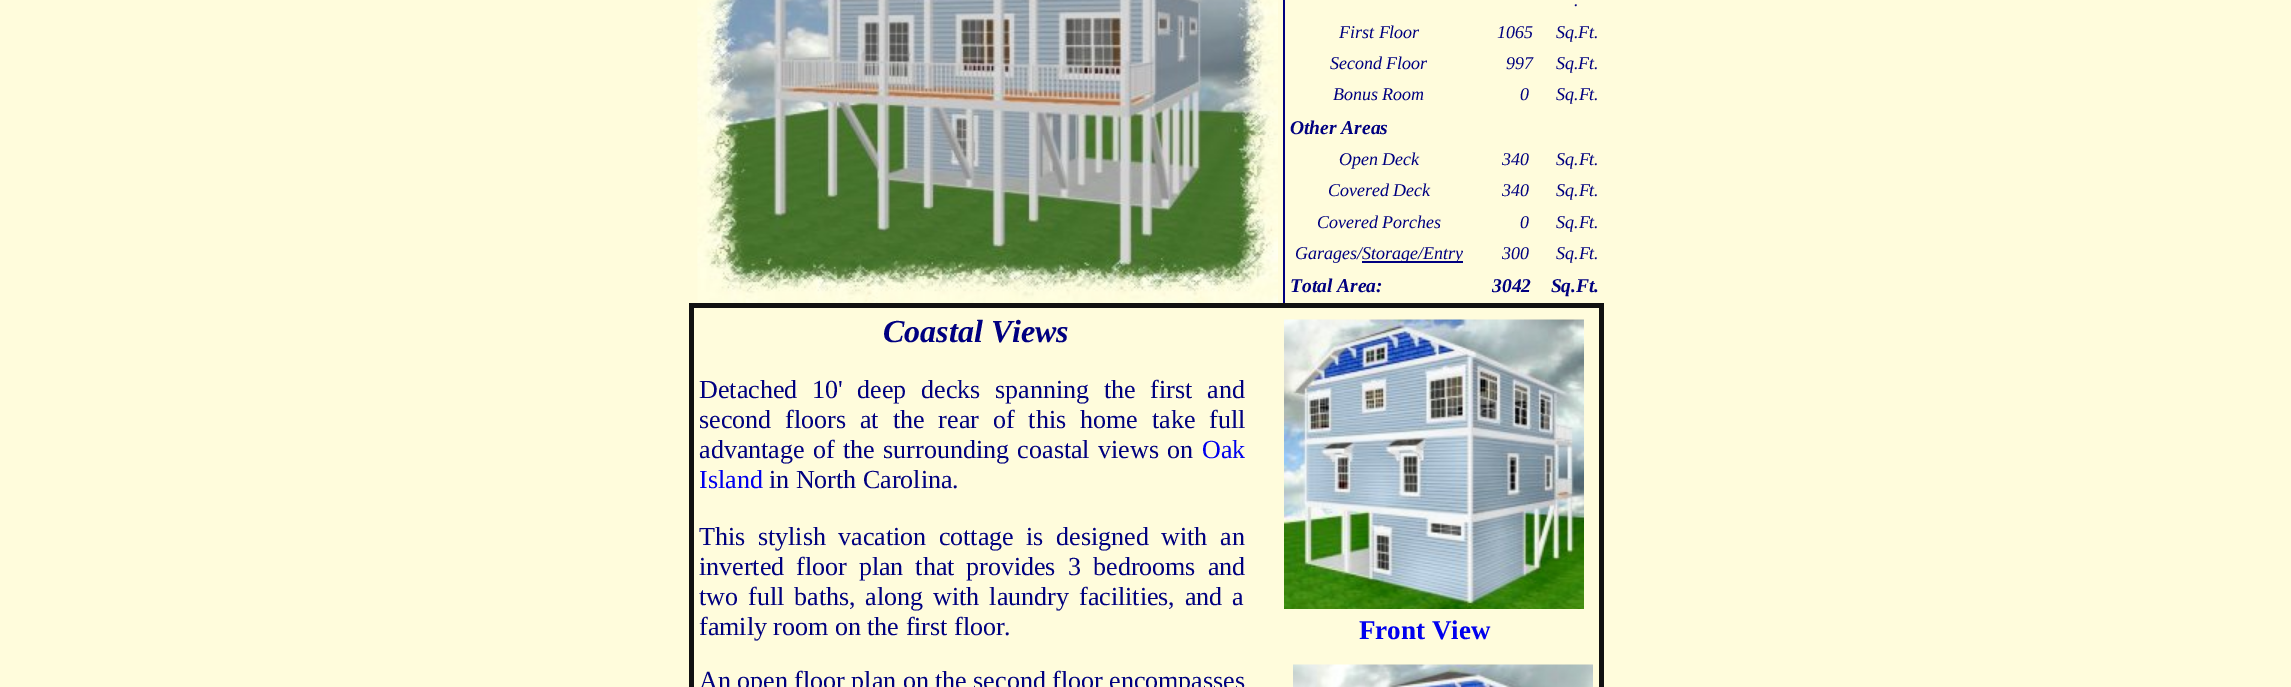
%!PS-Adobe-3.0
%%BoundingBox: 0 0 2291 687
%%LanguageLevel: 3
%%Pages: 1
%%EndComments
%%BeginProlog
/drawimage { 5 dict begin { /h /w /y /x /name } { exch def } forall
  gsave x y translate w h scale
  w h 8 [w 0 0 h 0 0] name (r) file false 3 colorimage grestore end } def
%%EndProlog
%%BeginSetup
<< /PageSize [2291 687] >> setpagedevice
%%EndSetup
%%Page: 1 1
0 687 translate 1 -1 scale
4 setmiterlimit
1 0.988 0.863 setrgbcolor
0 0 2291 687 rectfill
(images/1.raw) 697 0 581 303 drawimage
0 0 0.502 setrgbcolor
1362 261 101 2 rectfill
1283 0 2 305 rectfill
0.067 setgray
689 303 915 5 rectfill
1599 303 5 384 rectfill
689 303 5 384 rectfill
(images/2.raw) 1284 319 300 290 drawimage
(images/3.raw) 1293 664 300 23 drawimage
/LiberationSerif-Italic [18 0 0 -18 0 0] selectfont
0 0 0.502 setrgbcolor
1574 6 moveto (.) show
1339 38 moveto (First Floor) show
1497 38 moveto (1065     Sq.Ft.) show
1330 69 moveto (Second Floor) show
1506 69 moveto (997     Sq.Ft.) show
1333 100 moveto (Bonus Room) show
1520 100 moveto (0      Sq.Ft.) show
/LiberationSerif-BoldItalic [19.5 0 0 -19.5 0 0] selectfont
1290 134 moveto (Other Areas) show
/LiberationSerif-Italic [18 0 0 -18 0 0] selectfont
1339 165 moveto (Open Deck) show
1502 165 moveto (340) show
1556 165 moveto (Sq.Ft.) show
1328 196 moveto (Covered Deck) show
1502 196 moveto (340      Sq.Ft.) show
1317 228 moveto (Covered Porches) show
1520 228 moveto (0      Sq.Ft.) show
1295 259 moveto (Garages/) show
1362 259 moveto (Storage/Entry) show
1502 259 moveto (300      Sq.Ft.) show
/LiberationSerif-BoldItalic [19.5 0 0 -19.5 0 0] selectfont
1290 292 moveto (Total Area:) show
1492 292 moveto (3042    Sq.Ft.) show
/LiberationSerif-BoldItalic [32 0 0 -32 0 0] selectfont
883 342 moveto (Coastal Views) show
/LiberationSerif-Regular [26 0 0 -26 0 0] selectfont
699 398 moveto 8.25 0 32 (Detached 10' deep decks spanning the first) widthshow
1207 398 moveto (and) show
699 428 moveto 7.5 0 32 (second floors at the rear of this home take full) widthshow
699 458 moveto 2 0 32 (advantage of the surrounding coastal views on) widthshow
0 0 0.933 setrgbcolor
1202 458 moveto (Oak) show
699 488 moveto (Island) show
0 0 0.502 setrgbcolor
769 488 moveto (in North Carolina.) show
699 545 moveto 6 0 32 (This stylish vacation cottage is designed with) widthshow
1220 545 moveto (an) show
699 575 moveto 5.5 0 32 (inverted floor plan that) widthshow
966 575 moveto 5.5 0 32 (provides 3) widthshow
1093 575 moveto 5.5 0 32 (bedrooms and) widthshow
699 605 moveto 3.5 0 32 (two full baths, along with laundry facilities, and a) widthshow
699 635 moveto (family room on the first floor.) show
699 689 moveto (An open floor plan on the second floor encompasses) show
/LiberationSerif-Bold [27 0 0 -27 0 0] selectfont
0 0 0.933 setrgbcolor
1359 639 moveto (Front View) show
showpage
%%EOF
